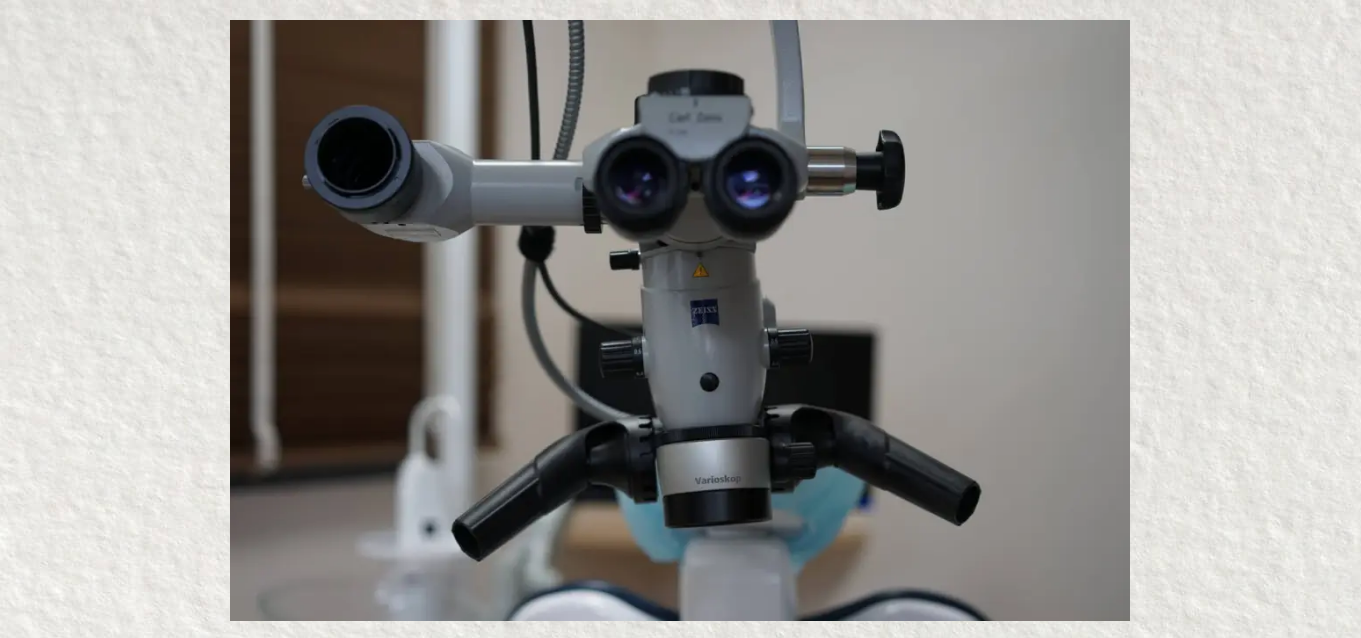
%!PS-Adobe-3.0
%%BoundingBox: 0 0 1361 638
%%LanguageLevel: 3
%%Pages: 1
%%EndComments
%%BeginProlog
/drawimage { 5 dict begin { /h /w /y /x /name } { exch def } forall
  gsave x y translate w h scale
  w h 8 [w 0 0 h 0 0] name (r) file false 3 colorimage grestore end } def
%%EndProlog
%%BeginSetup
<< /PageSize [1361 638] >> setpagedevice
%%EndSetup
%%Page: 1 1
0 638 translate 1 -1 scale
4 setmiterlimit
1 setgray
0 0 1361 638 rectfill
(images/1.raw) 0 0 1361 638 drawimage
(images/2.raw) 230 20 900 601 drawimage
showpage
%%EOF
